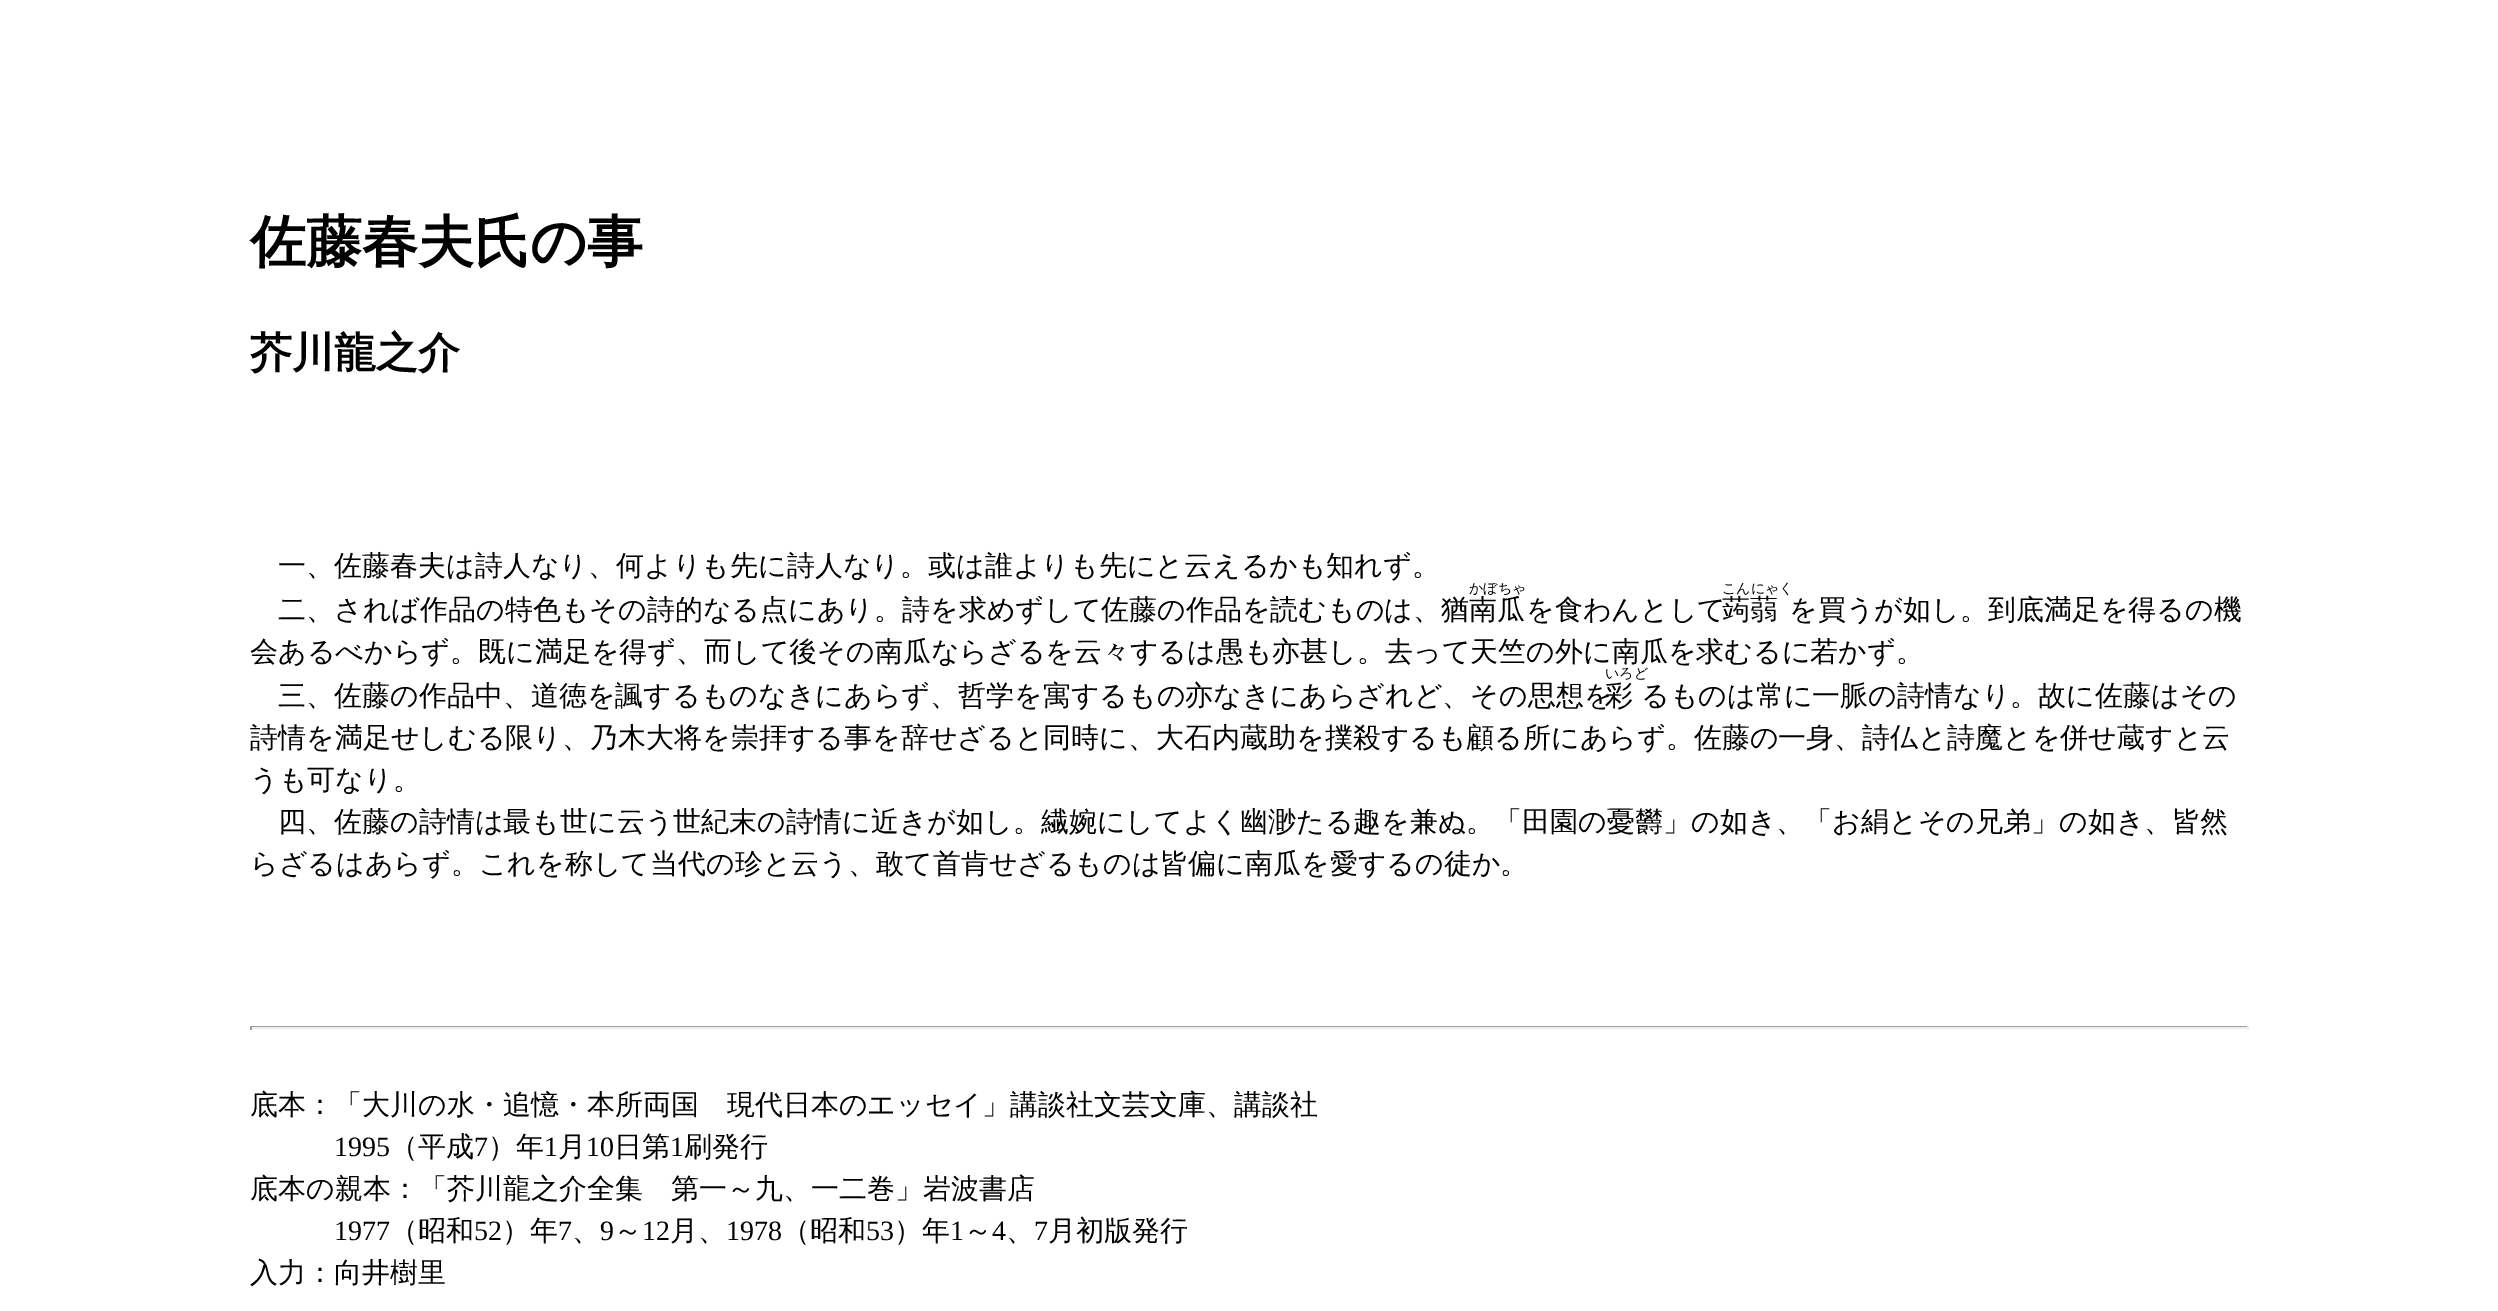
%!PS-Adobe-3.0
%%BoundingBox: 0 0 2498 1311
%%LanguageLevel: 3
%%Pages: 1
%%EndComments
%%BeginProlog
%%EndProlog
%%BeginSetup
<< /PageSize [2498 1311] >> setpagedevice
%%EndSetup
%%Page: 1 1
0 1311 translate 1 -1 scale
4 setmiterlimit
1 setgray
0 0 2498 1311 rectfill
0.624 setgray
250 1026 1999 1 rectfill
0.933 setgray
2247 1026 2 4 rectfill
250 1027 1999 2 rectfill
0.624 setgray
250 1026 2 4 rectfill
/WenQuanYiZenHei-Bold [56 0 0 -56 0 0] selectfont
0 setgray
250 261 moveto (佐藤春夫氏の事) show
/WenQuanYiZenHei-Bold [42 0 0 -42 0 0] selectfont
250 367 moveto (芥川龍之介) show
/WenQuanYiZenHei-Medium [28 0 0 -28 0 0] selectfont
278 575 moveto (一、佐藤春夫は詩人なり、何よりも先に詩人なり。或は誰よりも先にと云えるかも知れず。) show
278 619 moveto (二、されば作品の特色もその詩的なる点にあり。詩を求めずして佐藤の作品を読むものは、猶) show
/WenQuanYiZenHei-Medium [14 0 0 -14 0 0] selectfont
1469 593 moveto (かぼちゃ) show
/WenQuanYiZenHei-Medium [28 0 0 -28 0 0] selectfont
1469 619 moveto (南瓜) show
1526 619 moveto (を食わんとして) show
/WenQuanYiZenHei-Medium [14 0 0 -14 0 0] selectfont
1722 593 moveto (こんにゃく) show
/WenQuanYiZenHei-Medium [28 0 0 -28 0 0] selectfont
1722 619 moveto (蒟蒻) show
1789 619 moveto (を買うが如し。到底満足を得るの機) show
250 661 moveto (会あるべからず。既に満足を得ず、而して後その南瓜ならざるを云々するは愚も亦甚し。去って天竺の外に南瓜を求むるに若かず。) show
278 705 moveto (三、佐藤の作品中、道徳を諷するものなきにあらず、哲学を寓するもの亦なきにあらざれど、その思想を) show
/WenQuanYiZenHei-Medium [14 0 0 -14 0 0] selectfont
1605 678 moveto (いろど) show
/WenQuanYiZenHei-Medium [28 0 0 -28 0 0] selectfont
1605 705 moveto (彩) show
1641 705 moveto (るものは常に一脈の詩情なり。故に佐藤はその) show
250 747 moveto (詩情を満足せしむる限り、乃木大将を崇拝する事を辞せざると同時に、大石内蔵助を撲殺するも顧る所にあらず。佐藤の一身、詩仏と詩魔とを併せ蔵すと云) show
250 789 moveto (うも可なり。) show
278 831 moveto (四、佐藤の詩情は最も世に云う世紀末の詩情に近きが如し。繊婉にしてよく幽渺たる趣を兼ぬ。「田園の憂欝」の如き、「お絹とその兄弟」の如き、皆然) show
250 873 moveto (らざるはあらず。これを称して当代の珍と云う、敢て首肯せざるものは皆偏に南瓜を愛するの徒か。) show
250 1114 moveto (底本：「大川の水・追憶・本所両国　現代日本のエッセイ」講談社文芸文庫、講談社) show
/LiberationSerif-Regular [28 0 0 -28 0 0] selectfont
334 1156 moveto (1995) show
/WenQuanYiZenHei-Medium [28 0 0 -28 0 0] selectfont
390 1156 moveto (（平成) show
/LiberationSerif-Regular [28 0 0 -28 0 0] selectfont
474 1156 moveto (7) show
/WenQuanYiZenHei-Medium [28 0 0 -28 0 0] selectfont
488 1156 moveto (）年) show
/LiberationSerif-Regular [28 0 0 -28 0 0] selectfont
544 1156 moveto (1) show
/WenQuanYiZenHei-Medium [28 0 0 -28 0 0] selectfont
558 1156 moveto (月) show
/LiberationSerif-Regular [28 0 0 -28 0 0] selectfont
586 1156 moveto (10) show
/WenQuanYiZenHei-Medium [28 0 0 -28 0 0] selectfont
614 1156 moveto (日第) show
/LiberationSerif-Regular [28 0 0 -28 0 0] selectfont
670 1156 moveto (1) show
/WenQuanYiZenHei-Medium [28 0 0 -28 0 0] selectfont
684 1156 moveto (刷発行) show
250 1198 moveto (底本の親本：「芥川龍之介全集　第一～九、一二巻」岩波書店) show
/LiberationSerif-Regular [28 0 0 -28 0 0] selectfont
334 1240 moveto (1977) show
/WenQuanYiZenHei-Medium [28 0 0 -28 0 0] selectfont
390 1240 moveto (（昭和) show
/LiberationSerif-Regular [28 0 0 -28 0 0] selectfont
474 1240 moveto (52) show
/WenQuanYiZenHei-Medium [28 0 0 -28 0 0] selectfont
502 1240 moveto (）年) show
/LiberationSerif-Regular [28 0 0 -28 0 0] selectfont
558 1240 moveto (7) show
600 1240 moveto (9) show
/WenQuanYiZenHei-Medium [28 0 0 -28 0 0] selectfont
614 1240 moveto (～) show
/LiberationSerif-Regular [28 0 0 -28 0 0] selectfont
642 1240 moveto (12) show
/WenQuanYiZenHei-Medium [28 0 0 -28 0 0] selectfont
670 1240 moveto (月、) show
/LiberationSerif-Regular [28 0 0 -28 0 0] selectfont
726 1240 moveto (1978) show
/WenQuanYiZenHei-Medium [28 0 0 -28 0 0] selectfont
782 1240 moveto (（昭和) show
/LiberationSerif-Regular [28 0 0 -28 0 0] selectfont
866 1240 moveto (53) show
/WenQuanYiZenHei-Medium [28 0 0 -28 0 0] selectfont
894 1240 moveto (）年) show
/LiberationSerif-Regular [28 0 0 -28 0 0] selectfont
950 1240 moveto (1) show
/WenQuanYiZenHei-Medium [28 0 0 -28 0 0] selectfont
964 1240 moveto (～) show
/LiberationSerif-Regular [28 0 0 -28 0 0] selectfont
992 1240 moveto (4) show
1034 1240 moveto (7) show
/WenQuanYiZenHei-Medium [28 0 0 -28 0 0] selectfont
1048 1240 moveto (月初版発行) show
572 1240 moveto (、) show
1006 1240 moveto (、) show
250 1282 moveto (入力：向井樹里) show
showpage
%%EOF
